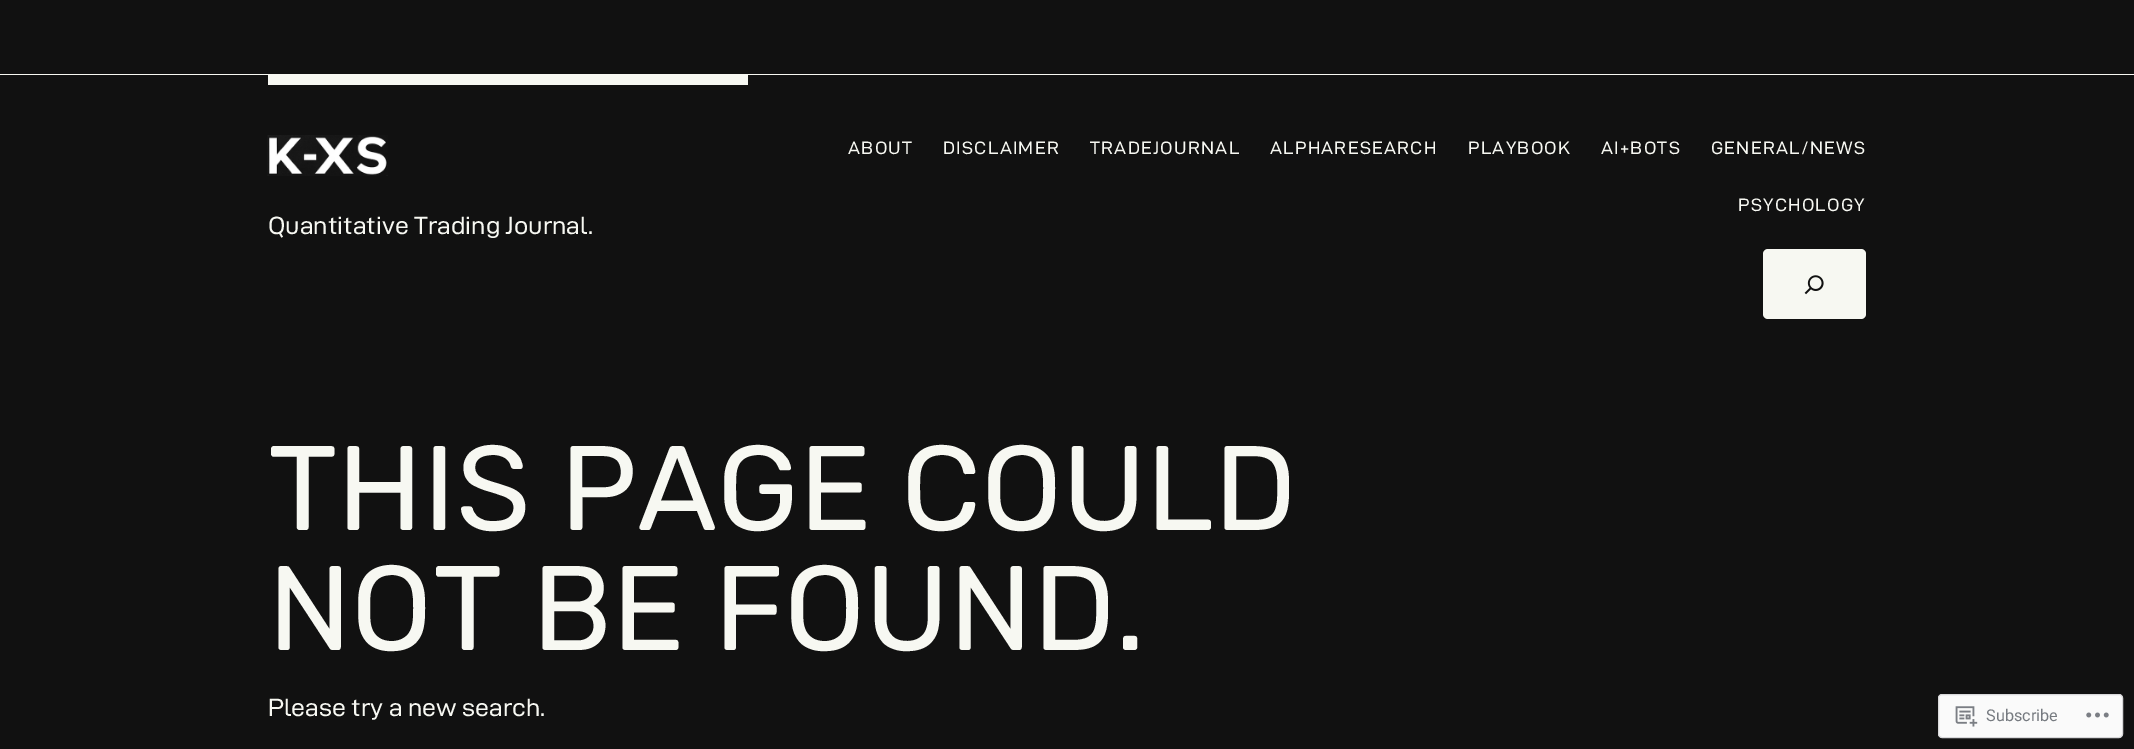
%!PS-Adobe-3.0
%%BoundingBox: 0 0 2134 749
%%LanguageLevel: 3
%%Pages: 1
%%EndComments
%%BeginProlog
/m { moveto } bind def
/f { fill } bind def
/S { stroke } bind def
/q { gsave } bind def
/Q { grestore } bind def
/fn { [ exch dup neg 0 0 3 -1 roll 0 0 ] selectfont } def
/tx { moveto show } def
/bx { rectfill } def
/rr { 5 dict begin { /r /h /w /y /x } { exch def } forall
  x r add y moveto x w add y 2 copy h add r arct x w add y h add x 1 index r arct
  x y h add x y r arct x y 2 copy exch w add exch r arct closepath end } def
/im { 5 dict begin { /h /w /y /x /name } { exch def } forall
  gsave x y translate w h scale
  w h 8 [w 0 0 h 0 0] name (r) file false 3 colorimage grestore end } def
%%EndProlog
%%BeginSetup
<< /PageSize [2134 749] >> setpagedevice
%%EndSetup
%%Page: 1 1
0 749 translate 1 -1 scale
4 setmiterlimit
0.067 setgray
0 0 2134 749 bx
0.969 0.973 0.949 setrgbcolor
0 74 2134 1 bx
/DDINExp-Regular 18 fn
848 154 m 1.25 0 (ABOUT) ashow
943 154 m 1.25 0 (DISCLAIMER) ashow
1090 154 m 1.25 0 (TRADEJOURNAL) ashow
1270 154 m 1.25 0 (ALPHARESEARCH) ashow
1468 154 m 1.25 0 (PLAYBOOK) ashow
1601 154 m 1.25 0 (AI+BOTS) ashow
1711 154 m 1.25 0 (GENERAL/NEWS) ashow
1738 211 m 1.25 0 (PSYCHOLOGY) ashow
1763 249 103 70 5 rr f
(image0.raw) 1804 275 20 20 im
268 75 480 10 bx
(image1.raw) 267 135 121 41 im
/DDINExp-Regular 25 fn
(Quantitative Trading Journal.) 268 234 tx
/Rubik-Regular 120 fn
(THIS PAGE COULD) 268 530 tx
(NOT BE FOUND.) 268 650 tx
/DDINExp-Regular 25 fn
(Please try a new search.) 268 716 tx
0.98 setgray
1938.5 694.5 184 43 3.5 rr q f Q
0.847 0.847 0.855 setrgbcolor
S
(image2.raw) 1955 706 23 21 im
/Roboto-Regular 16.25 fn
0.463 0.478 0.502 setrgbcolor
(Subscribe) 1986 721 tx
(image3.raw) 2086 712 23 6 im
showpage
%%EOF
